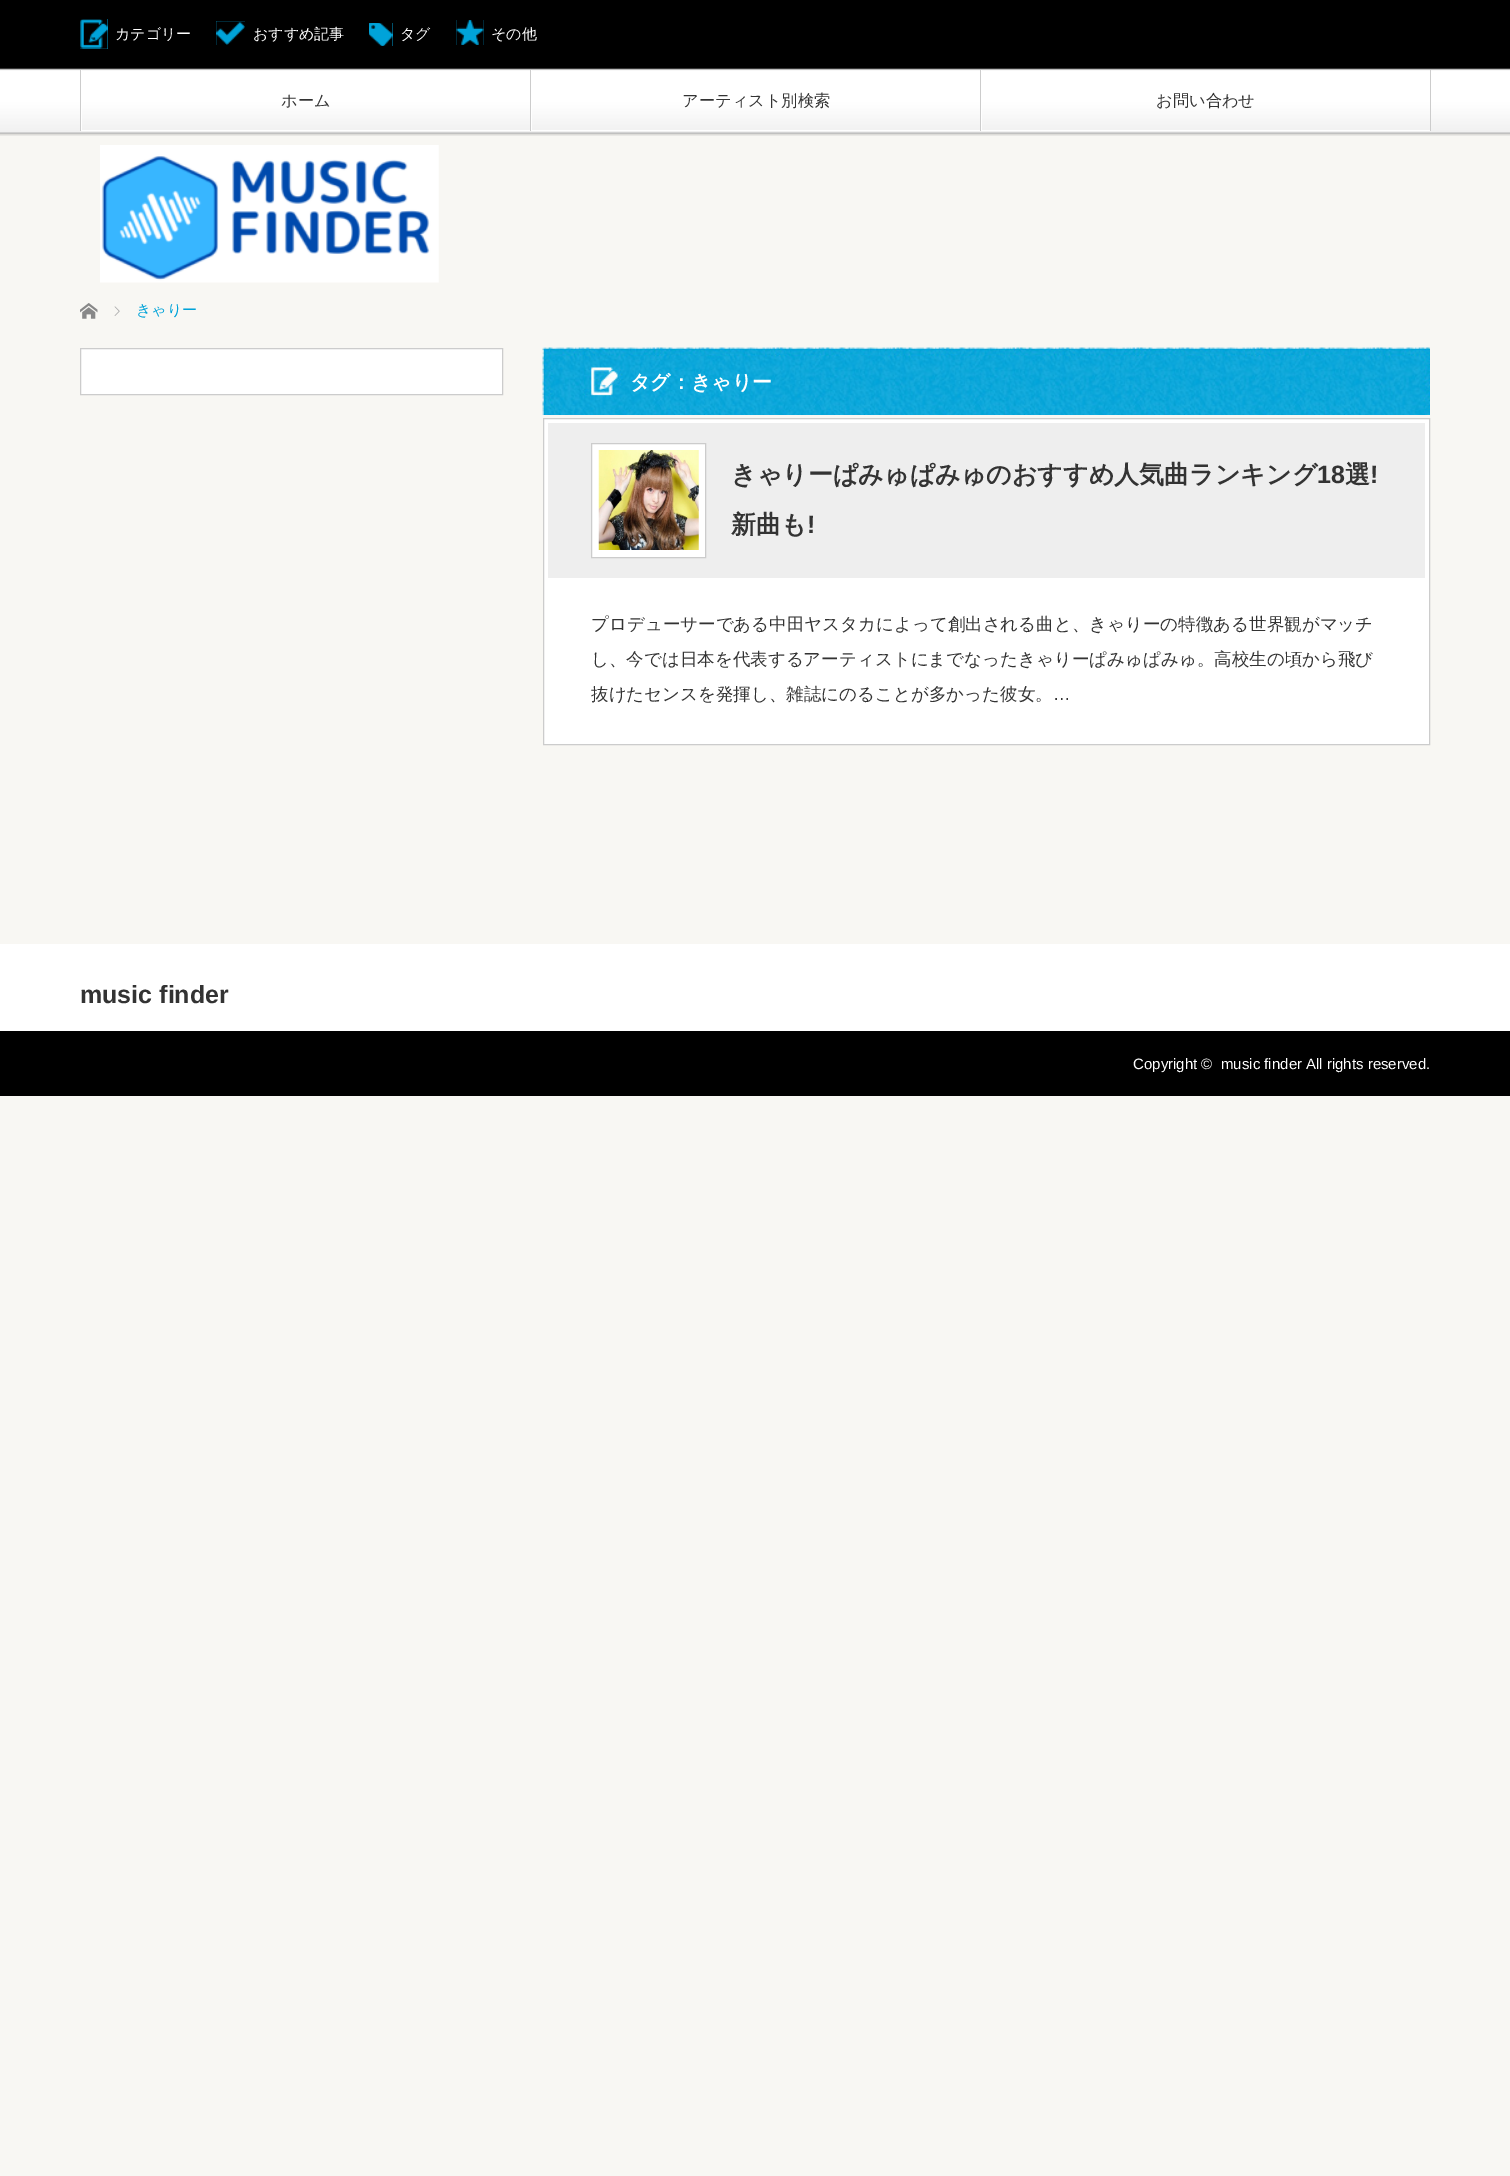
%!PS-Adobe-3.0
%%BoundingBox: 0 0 1510 2176
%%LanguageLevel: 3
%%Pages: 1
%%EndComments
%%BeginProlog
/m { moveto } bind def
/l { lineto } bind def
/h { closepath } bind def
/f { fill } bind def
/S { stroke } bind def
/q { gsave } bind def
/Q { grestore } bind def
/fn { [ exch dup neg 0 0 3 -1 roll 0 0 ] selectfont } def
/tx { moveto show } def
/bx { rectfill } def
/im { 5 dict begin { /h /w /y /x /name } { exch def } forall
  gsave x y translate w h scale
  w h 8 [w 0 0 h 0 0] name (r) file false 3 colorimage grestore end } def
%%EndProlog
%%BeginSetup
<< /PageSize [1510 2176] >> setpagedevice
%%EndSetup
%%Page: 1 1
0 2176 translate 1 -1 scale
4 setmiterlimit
0.973 0.969 0.953 setrgbcolor
0 0 1510 2176 bx
(image0.raw) 0 0 1510 136 im
0 0.639 0.851 setrgbcolor
80 19 28 30 bx
(image1.raw) 80 19 28 30 im
/WenQuanYiZenHei-Medium 15 fn
1 setgray
(カテゴリー) 115 39 tx
0 0.639 0.851 setrgbcolor
216 21 29 24 bx
(image2.raw) 216 21 29 24 im
1 setgray
(おすすめ記事) 253 39 tx
0 0.639 0.851 setrgbcolor
369 23 24 23 bx
(image3.raw) 369 23 24 23 im
1 setgray
(タグ) 400 39 tx
0 0.639 0.851 setrgbcolor
456 20 28 25 bx
(image4.raw) 456 20 28 25 im
1 setgray
(その他) 491 39 tx
0.8 setgray
1430 70 1 61 bx
q
81 70 449 61 rectclip
1 setgray
-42 -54 m 654 -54 l 654 255 l -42 255 l h 82 69 m 531 69 l 531 130 l 82 130 l h eofill
Q
80 70 1 61 bx
/WenQuanYiZenHei-Medium 16.25 fn
0.2 setgray
(ホーム) 281 106 tx
q
531 70 449 61 rectclip
1 setgray
408 -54 m 1104 -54 l 1104 255 l 408 255 l h 532 69 m 981 69 l 981 130 l 532 130 l h eofill
Q
0.8 setgray
530 70 1 61 bx
0.2 setgray
(アーティスト別検索) 682 106 tx
q
981 70 449 61 rectclip
1 setgray
858 -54 m 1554 -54 l 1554 255 l 858 255 l h 982 69 m 1431 69 l 1431 130 l 982 130 l h eofill
Q
0.8 setgray
980 70 1 61 bx
0.2 setgray
(お問い合わせ) 1156 106 tx
(image5.raw) 100 145 339 138 im
(image6.raw) 80 303 18 16 im
(image7.raw) 114 306 6 10 im
/WenQuanYiZenHei-Medium 15 fn
0 0.639 0.851 setrgbcolor
(きゃりー) 136 315 tx
1 setgray
80.5 348.5 m 502.5 348.5 l 502.5 394.5 l 80.5 394.5 l h q f Q
0.8 setgray
S
(image8.raw) 542 347 888 68 im
/WenQuanYiZenHei-Bold 20 fn
1 setgray
(タグ：きゃりー) 630 389 tx
543.5 418.5 m 1429.5 418.5 l 1429.5 744.5 l 543.5 744.5 l h q f Q
0.8 setgray
S
0.933 setgray
548 423 877 155 bx
1 setgray
591.5 443.5 m 705.5 443.5 l 705.5 557.5 l 591.5 557.5 l h q f Q
0.8 setgray
S
(image9.raw) 598 450 101 100 im
/WenQuanYiZenHei-Bold 25 fn
0.2 setgray
(きゃりーぱみゅぱみゅのおすすめ人気曲ランキング) 731 483 tx
/LiberationSans-Bold 25 fn
(18) 1317 483 tx
/WenQuanYiZenHei-Bold 25 fn
(選) 1345 483 tx
/LiberationSans-Bold 25 fn
(!) 1370 483 tx
/WenQuanYiZenHei-Bold 25 fn
(新曲も) 731 533 tx
/LiberationSans-Bold 25 fn
(!) 807 533 tx
/WenQuanYiZenHei-Medium 17.5 fn
(プロデューサーである中田ヤスタカによって創出される曲と、きゃりーの特徴ある世界観がマッチ) 591 630 tx
(し、今では日本を代表するアーティストにまでなったきゃりーぱみゅぱみゅ。高校生の頃から飛び) 591 665 tx
(抜けたセンスを発揮し、雑誌にのることが多かった彼女。) 591 700 tx
/LiberationSans-Regular 17.5 fn
(…) 1053 700 tx
1 setgray
0 944 1510 87 bx
/LiberationSans-Bold 25 fn
0.2 setgray
(music finder) 80 1003 tx
0 setgray
0 1031 1510 65 bx
/LiberationSans-Regular 15 fn
1 setgray
(Copyright ©) 1133 1069 tx
(music finder All rights reserved.) 1221 1069 tx
showpage
%%EOF
